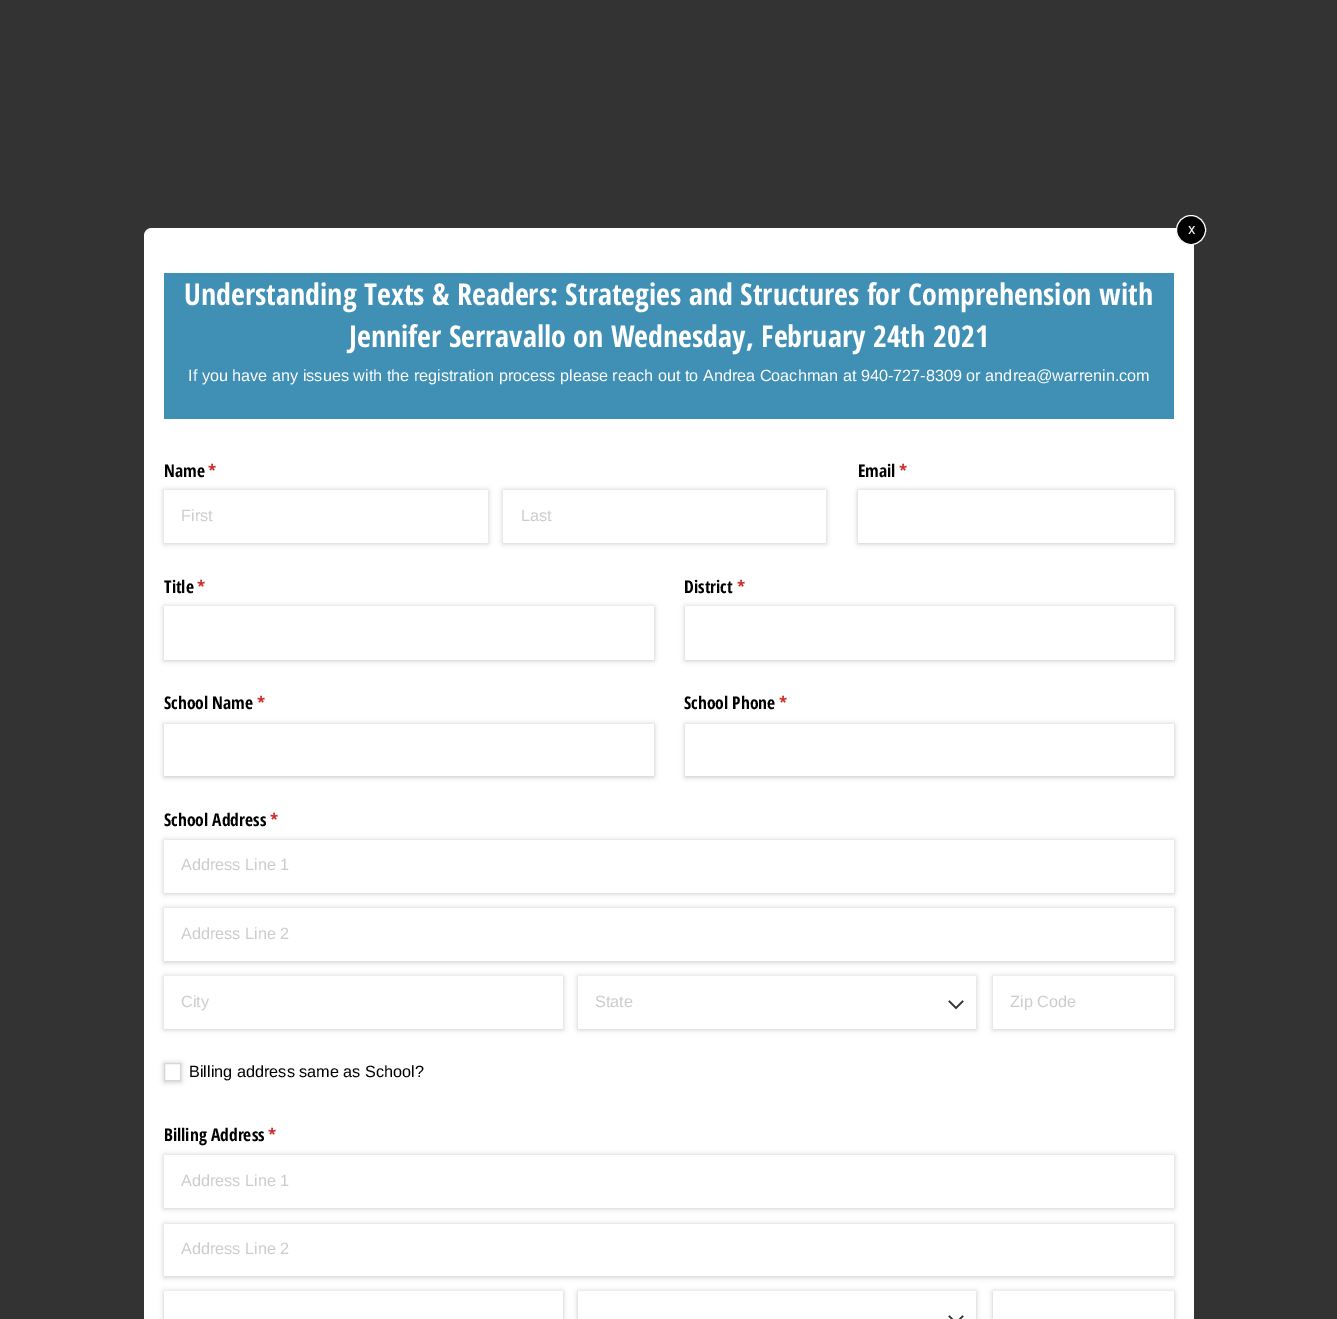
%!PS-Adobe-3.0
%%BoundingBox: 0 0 1337 1319
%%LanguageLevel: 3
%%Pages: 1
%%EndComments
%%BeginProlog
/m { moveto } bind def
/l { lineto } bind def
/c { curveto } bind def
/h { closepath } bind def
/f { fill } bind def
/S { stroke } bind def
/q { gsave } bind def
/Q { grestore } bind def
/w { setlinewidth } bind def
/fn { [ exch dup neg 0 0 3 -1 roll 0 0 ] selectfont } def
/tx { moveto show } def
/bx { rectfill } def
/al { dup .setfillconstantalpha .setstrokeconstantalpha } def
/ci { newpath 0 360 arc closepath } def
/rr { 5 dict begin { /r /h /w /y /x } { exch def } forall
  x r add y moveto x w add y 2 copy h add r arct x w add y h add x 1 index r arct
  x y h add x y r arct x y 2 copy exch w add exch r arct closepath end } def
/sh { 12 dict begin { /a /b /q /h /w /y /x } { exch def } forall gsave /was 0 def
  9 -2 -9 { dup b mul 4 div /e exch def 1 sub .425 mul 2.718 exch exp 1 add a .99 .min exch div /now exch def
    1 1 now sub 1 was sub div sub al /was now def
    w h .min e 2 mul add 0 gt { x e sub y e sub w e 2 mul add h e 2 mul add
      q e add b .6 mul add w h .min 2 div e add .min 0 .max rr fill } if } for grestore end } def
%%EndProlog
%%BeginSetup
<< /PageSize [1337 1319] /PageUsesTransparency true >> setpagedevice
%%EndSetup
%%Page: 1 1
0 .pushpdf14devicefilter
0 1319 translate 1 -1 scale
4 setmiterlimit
0.2 setgray
0 0 1337 1319 bx
1 setgray
152 228 m 1186 228 l 1190.5 228 1194 231.5 1194 236 c 1194 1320 l 144 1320 l 144 236 l 144 231.5 147.5 228 152 228 c h f
0 setgray
1191 230 14.5 ci q f Q
1 setgray
S
/Roboto-Regular 15 fn
(x) 1188 234 tx
0.251 0.565 0.71 setrgbcolor
164 273 1010 146 bx
/OpenSansCondensed-Bold 30.05 fn
1 setgray
(Understanding Texts & Readers: Strategies and Structures for Comprehension with) 184 305 tx
(Jennifer Serravallo on Wednesday, February 24th 2021) 349 347 tx
/LiberationSans-Regular 16.25 fn
(If you have any issues with the registration process please reach out to Andrea Coachman at 940-727-8309 or andrea@warrenin.com) 188 381 tx
/OpenSansCondensed-Bold 17.5 fn
0 setgray
(Name) 164 477 tx
0.8 0.165 0.141 setrgbcolor
(*) 208 477 tx
0 setgray
164 491 324 53 0 2 0.1 sh
0.8 setgray
164 490 324 53 0 3 0.7 sh
1 setgray
164 490 324 53 bx
/LiberationSans-Regular 16.25 fn
0.8 setgray
(First) 181 521 tx
0 setgray
503 491 323 53 0 2 0.1 sh
0.8 setgray
503 490 323 53 0 3 0.7 sh
1 setgray
503 490 323 53 bx
0.8 setgray
(Last) 521 521 tx
/OpenSansCondensed-Bold 17.5 fn
0 setgray
(Email) 858 477 tx
0.8 0.165 0.141 setrgbcolor
(*) 899 477 tx
0.8 setgray
858 490 316 53 0 3 0.7 sh
0 setgray
858 491 316 53 0 2 0.1 sh
1 setgray
858 490 316 53 bx
0 setgray
(Title) 164 593 tx
0.8 0.165 0.141 setrgbcolor
(*) 197 593 tx
0.8 setgray
164 606 490 54 0 3 0.7 sh
0 setgray
164 608 490 53 0 2 0.1 sh
1 setgray
164 606 490 54 bx
0 setgray
(District) 684 593 tx
0.8 0.165 0.141 setrgbcolor
(*) 737 593 tx
0.8 setgray
685 606 489 54 0 3 0.7 sh
0 setgray
685 608 489 53 0 2 0.1 sh
1 setgray
685 606 489 54 bx
0 setgray
(School Name) 164 709 tx
0.8 0.165 0.141 setrgbcolor
(*) 257 709 tx
0.8 setgray
164 724 490 52 0 3 0.7 sh
0 setgray
164 725 490 53 0 2 0.1 sh
1 setgray
164 724 490 52 bx
0 setgray
(School Phone) 684 709 tx
0.8 0.165 0.141 setrgbcolor
(*) 779 709 tx
0.8 setgray
685 724 489 52 0 3 0.7 sh
0 setgray
685 725 489 53 0 2 0.1 sh
1 setgray
685 724 489 52 bx
0 setgray
(School Address) 164 826 tx
0.8 0.165 0.141 setrgbcolor
(*) 270 826 tx
0 setgray
164 841 1010 53 0 2 0.1 sh
0.8 setgray
164 840 1010 53 0 3 0.7 sh
1 setgray
164 840 1010 53 bx
/LiberationSans-Regular 16.25 fn
0.8 setgray
(Address Line 1) 181 870 tx
0 setgray
164 909 1010 54 0 2 0.1 sh
0.8 setgray
164 908 1010 53 0 3 0.7 sh
1 setgray
164 908 1010 53 bx
0.8 setgray
(Address Line 2) 181 939 tx
0 setgray
164 978 399 52 0 2 0.1 sh
0.8 setgray
164 976 399 53 0 3 0.7 sh
1 setgray
164 976 399 53 bx
0.8 setgray
(City) 181 1007 tx
0 setgray
578 978 398 52 0 2 0.1 sh
0.8 setgray
578 976 398 53 0 3 0.7 sh
1 setgray
578 976 398 53 bx
0.8 setgray
(State) 595 1007 tx
0.2 setgray
1.5 w
2 setlinecap
949.5 1001.5 m 956 1008 l 962.5 1001.5 l S
0 setgray
993 978 181 52 0 2 0.1 sh
0.8 setgray
993 976 181 53 0 3 0.7 sh
1 setgray
993 976 181 53 bx
0.8 setgray
(Zip Code) 1010 1007 tx
q
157 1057 m 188 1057 l 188 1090 l 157 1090 l h 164 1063 m 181 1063 l 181 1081 l 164 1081 l h eoclip newpath
0 setgray
164 1064 17 19 0 2 0.1 sh
Q
q
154 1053 m 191 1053 l 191 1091 l 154 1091 l h 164 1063 m 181 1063 l 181 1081 l 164 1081 l h eoclip newpath
164 1063 17 18 0 3 0.7 sh
Q
0.839 setgray
1 w
0 setlinecap
164.5 1063.5 16 17 rectstroke
0 setgray
(Billing address same as School?) 189 1077 tx
/OpenSansCondensed-Bold 17.5 fn
(Billing Address) 164 1141 tx
0.8 0.165 0.141 setrgbcolor
(*) 268 1141 tx
0 setgray
164 1156 1010 53 0 2 0.1 sh
0.8 setgray
164 1155 1010 53 0 3 0.7 sh
1 setgray
164 1155 1010 53 bx
/LiberationSans-Regular 16.25 fn
0.8 setgray
(Address Line 1) 181 1186 tx
0 setgray
164 1225 1010 53 0 2 0.1 sh
0.8 setgray
164 1224 1010 52 0 3 0.7 sh
1 setgray
164 1224 1010 52 bx
0.8 setgray
(Address Line 2) 181 1254 tx
164 1291 399 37 0 3 0.7 sh
0 setgray
164 1293 399 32 0 2 0.1 sh
1 setgray
164 1291 399 28 bx
0.8 setgray
578 1291 398 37 0 3 0.7 sh
0 setgray
578 1293 398 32 0 2 0.1 sh
1 setgray
578 1291 398 28 bx
0.2 setgray
1.5 w
2 setlinecap
949.5 1316.5 m 956 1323 l 962.5 1316.5 l S
0.8 setgray
993 1291 181 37 0 3 0.7 sh
0 setgray
993 1293 181 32 0 2 0.1 sh
1 setgray
993 1291 181 28 bx
.poppdf14devicefilter showpage
%%EOF
